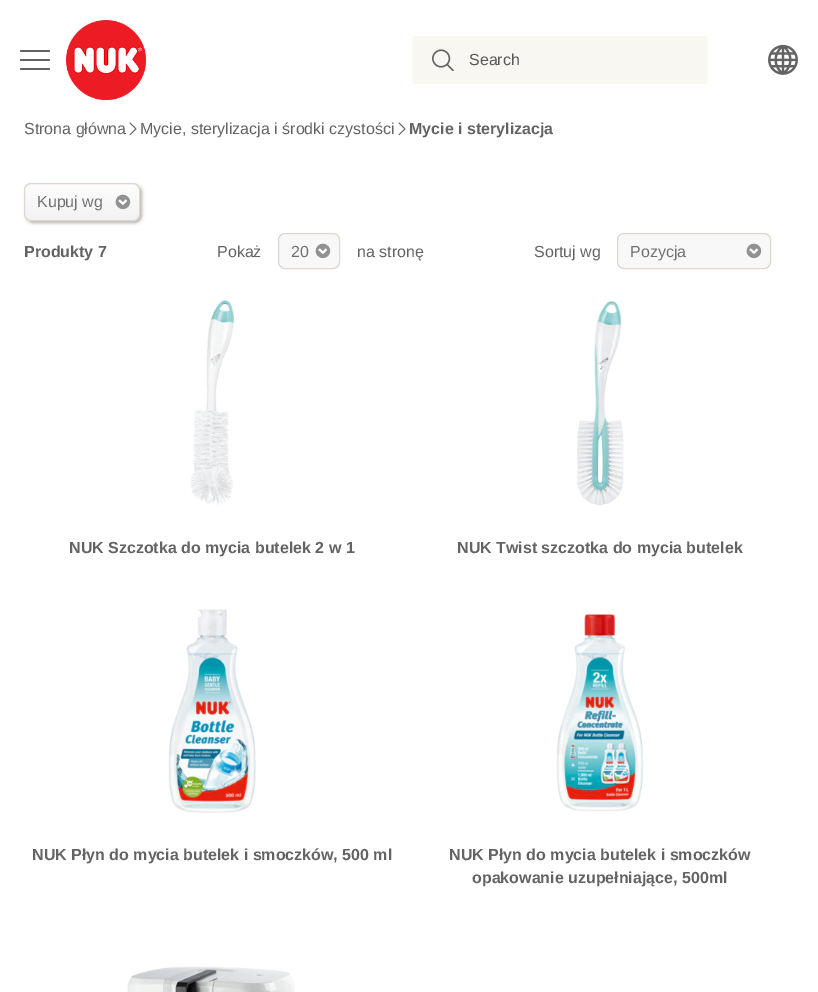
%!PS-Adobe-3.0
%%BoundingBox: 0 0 818 992
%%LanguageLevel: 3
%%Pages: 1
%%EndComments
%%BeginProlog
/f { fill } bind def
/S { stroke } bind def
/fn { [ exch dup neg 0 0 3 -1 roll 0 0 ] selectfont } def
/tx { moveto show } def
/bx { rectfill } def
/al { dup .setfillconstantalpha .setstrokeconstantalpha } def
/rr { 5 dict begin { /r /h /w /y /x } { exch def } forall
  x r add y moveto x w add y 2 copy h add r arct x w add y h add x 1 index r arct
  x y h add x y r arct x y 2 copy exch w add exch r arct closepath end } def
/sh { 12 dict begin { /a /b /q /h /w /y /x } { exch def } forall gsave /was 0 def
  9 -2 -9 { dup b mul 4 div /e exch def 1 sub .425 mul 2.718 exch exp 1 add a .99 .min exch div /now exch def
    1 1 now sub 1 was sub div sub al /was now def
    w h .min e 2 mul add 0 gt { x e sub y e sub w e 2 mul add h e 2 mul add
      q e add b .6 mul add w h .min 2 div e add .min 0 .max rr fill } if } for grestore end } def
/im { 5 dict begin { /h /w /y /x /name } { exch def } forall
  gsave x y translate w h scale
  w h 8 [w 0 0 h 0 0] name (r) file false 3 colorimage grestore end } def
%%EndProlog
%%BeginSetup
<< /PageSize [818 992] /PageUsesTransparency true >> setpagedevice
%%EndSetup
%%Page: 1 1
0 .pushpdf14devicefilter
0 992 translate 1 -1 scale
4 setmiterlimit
1 setgray
0 0 818 992 bx
0.392 0.388 0.388 setrgbcolor
20 50 30 2 1 rr f
20 59 30 2 1 rr f
20 68 30 2 1 rr f
(image0.raw) 66 20 80 80 im
0.973 0.969 0.949 setrgbcolor
412 36 296 48 4 rr f
(image1.raw) 432 49 22 22 im
/LiberationSans-Regular 16 fn
0.341 setgray
(Search) 469 65 tx
(image2.raw) 768 44 30 31 im
0.392 0.388 0.388 setrgbcolor
(Strona główna) 24 134 tx
(image3.raw) 129 122 8 14 im
(Mycie, sterylizacja i środki czystości) 140 134 tx
(image3.raw) 398 122 8 14 im
/LiberationSans-Bold 16 fn
(Mycie i sterylizacja) 409 134 tx
0.2 0.184 0.153 setrgbcolor
26 185 116 38 7 1.5 0.35 sh
(image4.raw) 24 183 116 38 im
0.863 0.847 0.816 setrgbcolor
24.5 183.5 115 37 6.5 rr S
/LiberationSans-Regular 16 fn
0.439 0.443 0.451 setrgbcolor
(Kupuj wg) 37 207 tx
/LiberationSans-Bold 16 fn
0.392 0.388 0.388 setrgbcolor
(Produkty 7) 24 257 tx
/LiberationSans-Regular 16 fn
(Pokaż) 217 257 tx
0.973 setgray
278 233 62 36 7 rr f
(image5.raw) 315 243 16 16 im
0.863 0.847 0.816 setrgbcolor
278.5 233.5 61 35 6.5 rr S
0.439 0.443 0.451 setrgbcolor
(20) 291 257 tx
0.392 0.388 0.388 setrgbcolor
(na stronę) 357 257 tx
(Sortuj wg) 534 257 tx
0.973 setgray
617 233 154 36 7 rr f
(image5.raw) 746 243 16 16 im
0.863 0.847 0.816 setrgbcolor
617.5 233.5 153 35 6.5 rr S
0.439 0.443 0.451 setrgbcolor
(Pozycja) 630 257 tx
(image6.raw) 190 300 44 205 im
/LiberationSans-Bold 16 fn
0.392 0.388 0.388 setrgbcolor
(NUK Szczotka do mycia butelek 2 w 1) 69 553 tx
(image7.raw) 576 301 48 205 im
(NUK Twist szczotka do mycia butelek) 457 553 tx
(image8.raw) 168 609 88 204 im
(NUK Płyn do mycia butelek i smoczków, 500 ml) 32 860 tx
(image9.raw) 556 614 88 198 im
(NUK Płyn do mycia butelek i smoczków) 449 860 tx
(opakowanie uzupełniające, 500ml) 472 883 tx
(image10.raw) 127 966 168 26 im
.poppdf14devicefilter showpage
%%EOF
